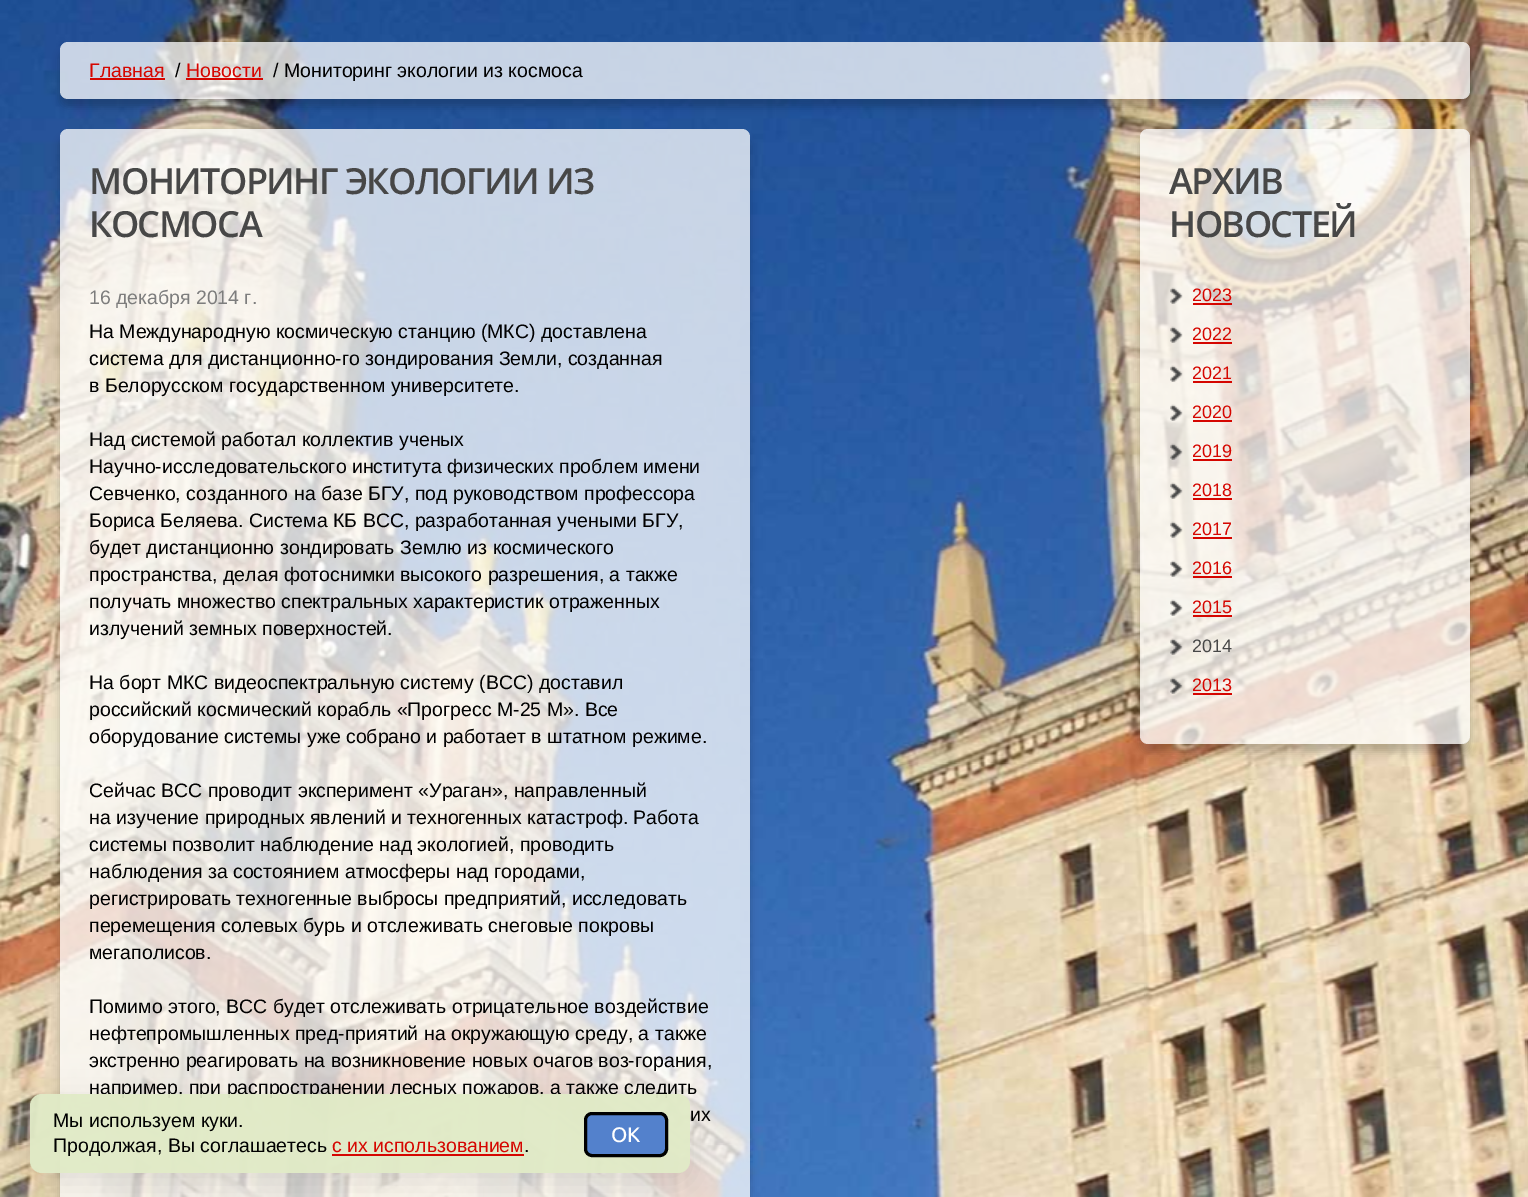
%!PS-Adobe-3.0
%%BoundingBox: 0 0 1528 1197
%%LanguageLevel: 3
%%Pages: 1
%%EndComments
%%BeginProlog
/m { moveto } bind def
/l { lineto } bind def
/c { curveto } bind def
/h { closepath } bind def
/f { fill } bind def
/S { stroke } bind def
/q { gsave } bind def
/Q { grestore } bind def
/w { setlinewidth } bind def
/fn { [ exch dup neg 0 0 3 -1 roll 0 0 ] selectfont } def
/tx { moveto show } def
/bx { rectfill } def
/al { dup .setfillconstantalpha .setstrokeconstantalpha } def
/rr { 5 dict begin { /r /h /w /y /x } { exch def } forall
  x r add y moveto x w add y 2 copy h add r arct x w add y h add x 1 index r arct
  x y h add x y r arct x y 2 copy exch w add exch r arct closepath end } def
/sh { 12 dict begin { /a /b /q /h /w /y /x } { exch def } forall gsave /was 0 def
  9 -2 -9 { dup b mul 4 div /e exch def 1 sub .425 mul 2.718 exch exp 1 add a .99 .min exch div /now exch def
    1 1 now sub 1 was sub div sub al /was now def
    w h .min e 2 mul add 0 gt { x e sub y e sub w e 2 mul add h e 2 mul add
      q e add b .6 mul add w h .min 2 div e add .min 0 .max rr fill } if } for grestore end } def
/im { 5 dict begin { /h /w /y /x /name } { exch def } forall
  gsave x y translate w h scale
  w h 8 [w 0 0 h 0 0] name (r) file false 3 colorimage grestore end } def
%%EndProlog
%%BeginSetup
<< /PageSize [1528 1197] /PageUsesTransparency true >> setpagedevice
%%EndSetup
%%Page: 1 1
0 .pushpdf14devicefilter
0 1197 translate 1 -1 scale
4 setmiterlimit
1 setgray
0 0 1528 1197 bx
(image0.raw) 0 0 1528 1197 im
q
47 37 m 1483 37 l 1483 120 l 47 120 l h 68 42 m 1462 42 l 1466.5 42 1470 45.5 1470 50 c 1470 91 l 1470 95.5 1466.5 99 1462 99 c 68 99 l 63.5 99 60 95.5 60 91 c 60 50 l 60 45.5 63.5 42 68 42 c h eoclip newpath
0 setgray
60 50 1410 57 8 4 0.2 sh
Q
0.75 al
60 42 1410 57 8 rr f
/LiberationSans-Regular 19.5 fn
1 al
0.835 0.024 0 setrgbcolor
(Главная) 89 77 tx
90 78 75 2 bx
0 setgray
(/) 175 77 tx
0.835 0.024 0 setrgbcolor
(Новости) 186 77 tx
186 78 77 2 bx
0 setgray
(/ Мониторинг экологии из космоса) 273 77 tx
q
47 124 m 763 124 l 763 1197 l 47 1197 l h 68 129 m 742 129 l 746.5 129 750 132.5 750 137 c 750 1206 l 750 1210.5 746.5 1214 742 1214 c 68 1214 l 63.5 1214 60 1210.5 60 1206 c 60 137 l 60 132.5 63.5 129 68 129 c h eoclip newpath
60 137 690 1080 8 4 0.2 sh
Q
0.75 al
1 setgray
60 129 690 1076 8 rr f
/OpenSans-SemiBold 36 fn
1 al
0.278 setgray
89 194 m -1.5 0 (МОНИТОРИНГ ЭКОЛОГИИ ИЗ) ashow
89 237 m -1.5 0 (КОСМОСА) ashow
/LiberationSans-Regular 19.5 fn
0.49 setgray
(16 декабря 2014 г.) 89 304 tx
0 setgray
(На Международную космическую станцию \(МКС\) доставлена) 89 338 tx
(система для дистанционно-го зондирования Земли, созданная) 89 365 tx
(в Белорусском государственном университете.) 89 392 tx
(Над системой работал коллектив ученых) 89 446 tx
(Научно-исследовательского института физических проблем имени) 89 473 tx
(Севченко, созданного на базе БГУ, под руководством профессора) 89 500 tx
(Бориса Беляева. Система КБ ВСС, разработанная учеными БГУ,) 89 527 tx
(будет дистанционно зондировать Землю из космического) 89 554 tx
(пространства, делая фотоснимки высокого разрешения, а также) 89 581 tx
(получать множество спектральных характеристик отраженных) 89 608 tx
(излучений земных поверхностей.) 89 635 tx
(На борт МКС видеоспектральную систему \(ВСС\) доставил) 89 689 tx
(российский космический корабль «Прогресс М-25 М». Все) 89 716 tx
(оборудование системы уже собрано и работает в штатном режиме.) 89 743 tx
(Сейчас ВСС проводит эксперимент «Ураган», направленный) 89 797 tx
(на изучение природных явлений и техногенных катастроф. Работа) 89 824 tx
(системы позволит наблюдение над экологией, проводить) 89 851 tx
(наблюдения за состоянием атмосферы над городами,) 89 878 tx
(регистрировать техногенные выбросы предприятий, исследовать) 89 905 tx
(перемещения солевых бурь и отслеживать снеговые покровы) 89 932 tx
(мегаполисов.) 89 959 tx
(Помимо этого, ВСС будет отслеживать отрицательное воздействие) 89 1013 tx
(нефтепромышленных пред-приятий на окружающую среду, а также) 89 1040 tx
(экстренно реагировать на возникновение новых очагов воз-горания,) 89 1067 tx
(например, при распространении лесных пожаров, а также следить) 89 1094 tx
(их) 690 1121 tx
q
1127 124 m 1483 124 l 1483 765 l 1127 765 l h 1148 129 m 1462 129 l 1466.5 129 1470 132.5 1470 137 c 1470 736 l 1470 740.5 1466.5 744 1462 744 c 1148 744 l 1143.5 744 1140 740.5 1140 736 c 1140 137 l 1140 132.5 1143.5 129 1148 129 c h eoclip newpath
1140 137 330 615 8 4 0.2 sh
Q
0.75 al
1 setgray
1140 129 330 615 8 rr f
/OpenSans-SemiBold 36 fn
1 al
0.278 setgray
1169 194 m -1.5 0 (АРХИВ) ashow
1169 237 m -1.5 0 (НОВОСТЕЙ) ashow
(image1.raw) 1170 287 13 17 im
/LiberationSans-Regular 18 fn
0.835 0.024 0 setrgbcolor
(2023) 1192 301 tx
1193 303 39 2 bx
(image2.raw) 1170 326 13 17 im
(2022) 1192 340 tx
1193 342 39 2 bx
(image3.raw) 1170 365 13 17 im
(2021) 1192 379 tx
1193 381 39 2 bx
(image4.raw) 1170 404 13 17 im
(2020) 1192 418 tx
1193 420 39 2 bx
(image5.raw) 1170 443 13 17 im
(2019) 1192 457 tx
1193 459 39 2 bx
(image6.raw) 1170 482 13 17 im
(2018) 1192 496 tx
1193 498 39 2 bx
(image7.raw) 1170 521 13 17 im
(2017) 1192 535 tx
1193 537 39 2 bx
(image8.raw) 1170 560 13 17 im
(2016) 1192 574 tx
1193 576 39 2 bx
(image9.raw) 1170 599 13 17 im
(2015) 1192 613 tx
1193 615 39 2 bx
(image10.raw) 1170 638 13 17 im
0.278 setgray
(2014) 1192 652 tx
(image11.raw) 1170 677 13 17 im
0.835 0.024 0 setrgbcolor
(2013) 1192 691 tx
1193 693 39 2 bx
q
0 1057 m 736 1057 l 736 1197 l 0 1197 l h 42 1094 m 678 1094 l 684.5 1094 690 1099.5 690 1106 c 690 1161 l 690 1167.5 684.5 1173 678 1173 c 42 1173 l 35.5 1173 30 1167.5 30 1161 c 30 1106 l 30 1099.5 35.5 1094 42 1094 c h eoclip newpath
0 setgray
30 1103 660 79 12 15 0.1 sh
Q
0.95 al
0.878 0.918 0.776 setrgbcolor
30 1094 660 79 12 rr f
/LiberationSans-Regular 19.5 fn
1 al
0 setgray
(Мы используем куки.) 53 1127 tx
(Продолжая, Вы соглашаетесь) 53 1152 tx
0.835 0.024 0 setrgbcolor
(с их использованием) 332 1152 tx
332 1154 192 2 bx
0 setgray
(.) 524 1152 tx
0.325 0.506 0.8 setrgbcolor
585.5 1113.5 81 42 6.5 rr q f Q
0 setgray
3 w
S
/Ubuntu-Medium 21 fn
1 setgray
(ОК) 611 1142 tx
.poppdf14devicefilter showpage
%%EOF
